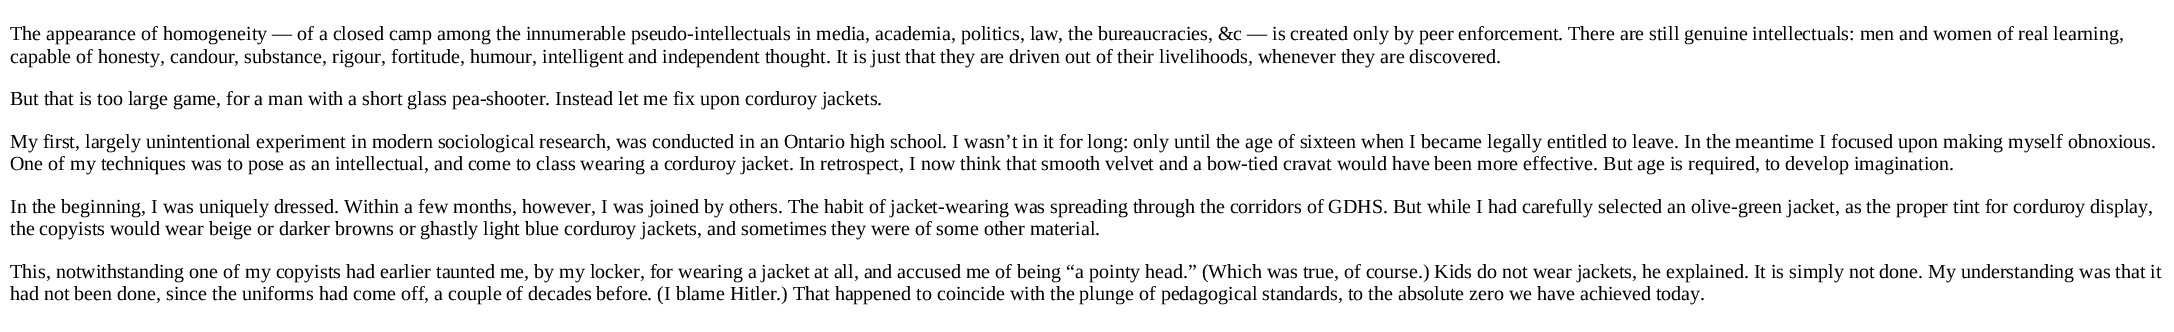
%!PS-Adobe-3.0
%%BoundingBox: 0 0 2174 332
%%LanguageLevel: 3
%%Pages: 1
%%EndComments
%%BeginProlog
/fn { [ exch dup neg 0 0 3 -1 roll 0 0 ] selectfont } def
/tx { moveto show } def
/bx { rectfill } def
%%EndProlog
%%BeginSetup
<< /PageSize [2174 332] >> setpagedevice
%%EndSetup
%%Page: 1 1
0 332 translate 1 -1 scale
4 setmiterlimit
1 setgray
0 0 2174 332 bx
/LiberationSerif-Regular 20 fn
0 setgray
(The appearance of homogeneity — of a closed camp among the innumerable pseudo-intellectuals in media, academia, politics, law, the bureaucracies, &c — is created only by peer enforcement. There are still genuine intellectuals: men and women of real learning,) 10 40 tx
(capable of honesty, candour, substance, rigour, fortitude, humour, intelligent and independent thought. It is just that they are driven out of their livelihoods, whenever they are discovered.) 10 63 tx
(But that is too large game, for a man with a short glass pea-shooter. Instead let me fix upon corduroy jackets.) 10 105 tx
(My first, largely unintentional experiment in modern sociological research, was conducted in an Ontario high school. I wasn’t in it for long: only until the age of sixteen when I became legally entitled to leave. In the meantime I focused upon making myself obnoxious.) 10 148 tx
(One of my techniques was to pose as an intellectual, and come to class wearing a corduroy jacket. In retrospect, I now think that smooth velvet and a bow-tied cravat would have been more effective. But age is required, to develop imagination.) 10 170 tx
(In the beginning, I was uniquely dressed. Within a few months, however, I was joined by others. The habit of jacket-wearing was spreading through the corridors of GDHS. But while I had carefully selected an olive-green jacket, as the proper tint for corduroy display,) 10 213 tx
(the copyists would wear beige or darker browns or ghastly light blue corduroy jackets, and sometimes they were of some other material.) 10 235 tx
(This, notwithstanding one of my copyists had earlier taunted me, by my locker, for wearing a jacket at all, and accused me of being “a pointy head.” \(Which was true, of course.\) Kids do not wear jackets, he explained. It is simply not done. My understanding was that it) 10 278 tx
(had not been done, since the uniforms had come off, a couple of decades before. \(I blame Hitler.\) That happened to coincide with the plunge of pedagogical standards, to the absolute zero we have achieved today.) 10 300 tx
showpage
%%EOF
